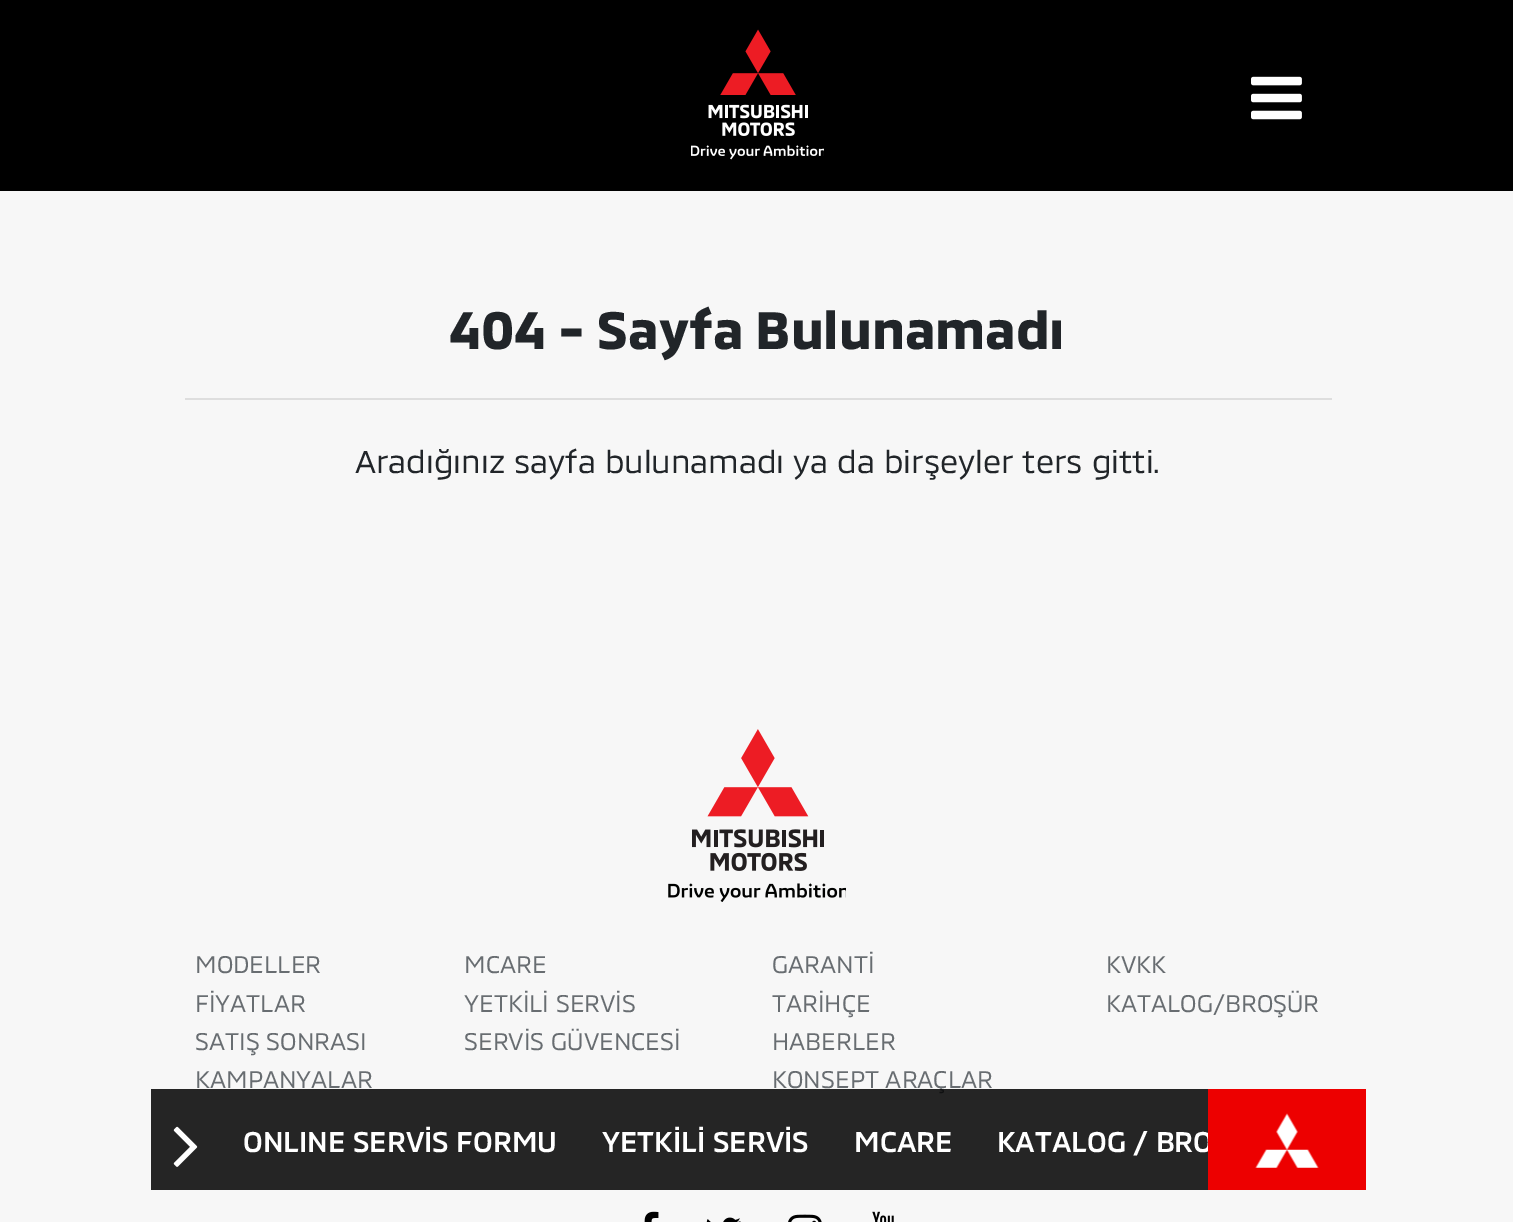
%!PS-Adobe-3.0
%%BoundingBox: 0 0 1513 1222
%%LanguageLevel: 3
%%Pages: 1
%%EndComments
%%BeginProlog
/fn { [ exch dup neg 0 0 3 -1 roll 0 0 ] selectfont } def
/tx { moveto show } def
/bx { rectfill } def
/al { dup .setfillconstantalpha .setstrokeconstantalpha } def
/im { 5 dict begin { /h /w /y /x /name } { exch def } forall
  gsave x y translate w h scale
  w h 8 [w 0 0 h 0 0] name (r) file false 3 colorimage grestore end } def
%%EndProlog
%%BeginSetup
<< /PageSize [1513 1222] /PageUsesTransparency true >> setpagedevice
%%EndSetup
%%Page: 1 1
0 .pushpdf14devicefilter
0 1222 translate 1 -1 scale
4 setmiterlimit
0.969 setgray
0 0 1513 1222 bx
0 setgray
0 0 1513 191 bx
(image0.raw) 691 29 133 131 im
(image1.raw) 1251 76 51 44 im
/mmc-Bold 54 fn
0.129 0.145 0.161 setrgbcolor
(404 - Sayfa Bulunamadı) 449 349 tx
0.871 setgray
185 398 1147 2 bx
/mmc-Regular 32.4 fn
0.129 0.145 0.161 setrgbcolor
(Aradığınız sayfa bulunamadı ya da birşeyler ters gitti.) 355 473 tx
(image2.raw) 668 729 178 173 im
/mmc-Regular 24.75 fn
0.408 0.427 0.443 setrgbcolor
(MODELLER) 195 973 tx
(FİYATLAR) 195 1012 tx
(SATIŞ SONRASI) 195 1050 tx
(KAMPANYALAR) 195 1088 tx
(MCARE) 464 973 tx
(YETKİLİ SERVİS) 464 1012 tx
(SERVİS GÜVENCESİ) 464 1050 tx
(GARANTİ) 772 973 tx
(TARİHÇE) 772 1012 tx
(HABERLER) 772 1050 tx
(KONSEPT ARAÇLAR) 772 1088 tx
(KVKK) 1106 973 tx
(KATALOG/BROŞÜR) 1106 1012 tx
(image3.raw) 644 1211 15 11 im
(image4.raw) 706 1217 35 5 im
(image5.raw) 788 1214 34 8 im
(image6.raw) 872 1211 22 11 im
0.85 al
0 setgray
151 1089 1057 101 bx
1 al
(image7.raw) 173 1126 25 41 im
/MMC-Medium 29.25 fn
1 setgray
(ONLINE SERVİS FORMU) 243 1152 tx
(YETKİLİ SERVİS) 602 1152 tx
(MCARE) 854 1152 tx
(KATALOG / BRO) 997 1152 tx
0.929 0 0 setrgbcolor
1208 1089 158 101 bx
(image8.raw) 1255 1113 64 55 im
.poppdf14devicefilter showpage
%%EOF
